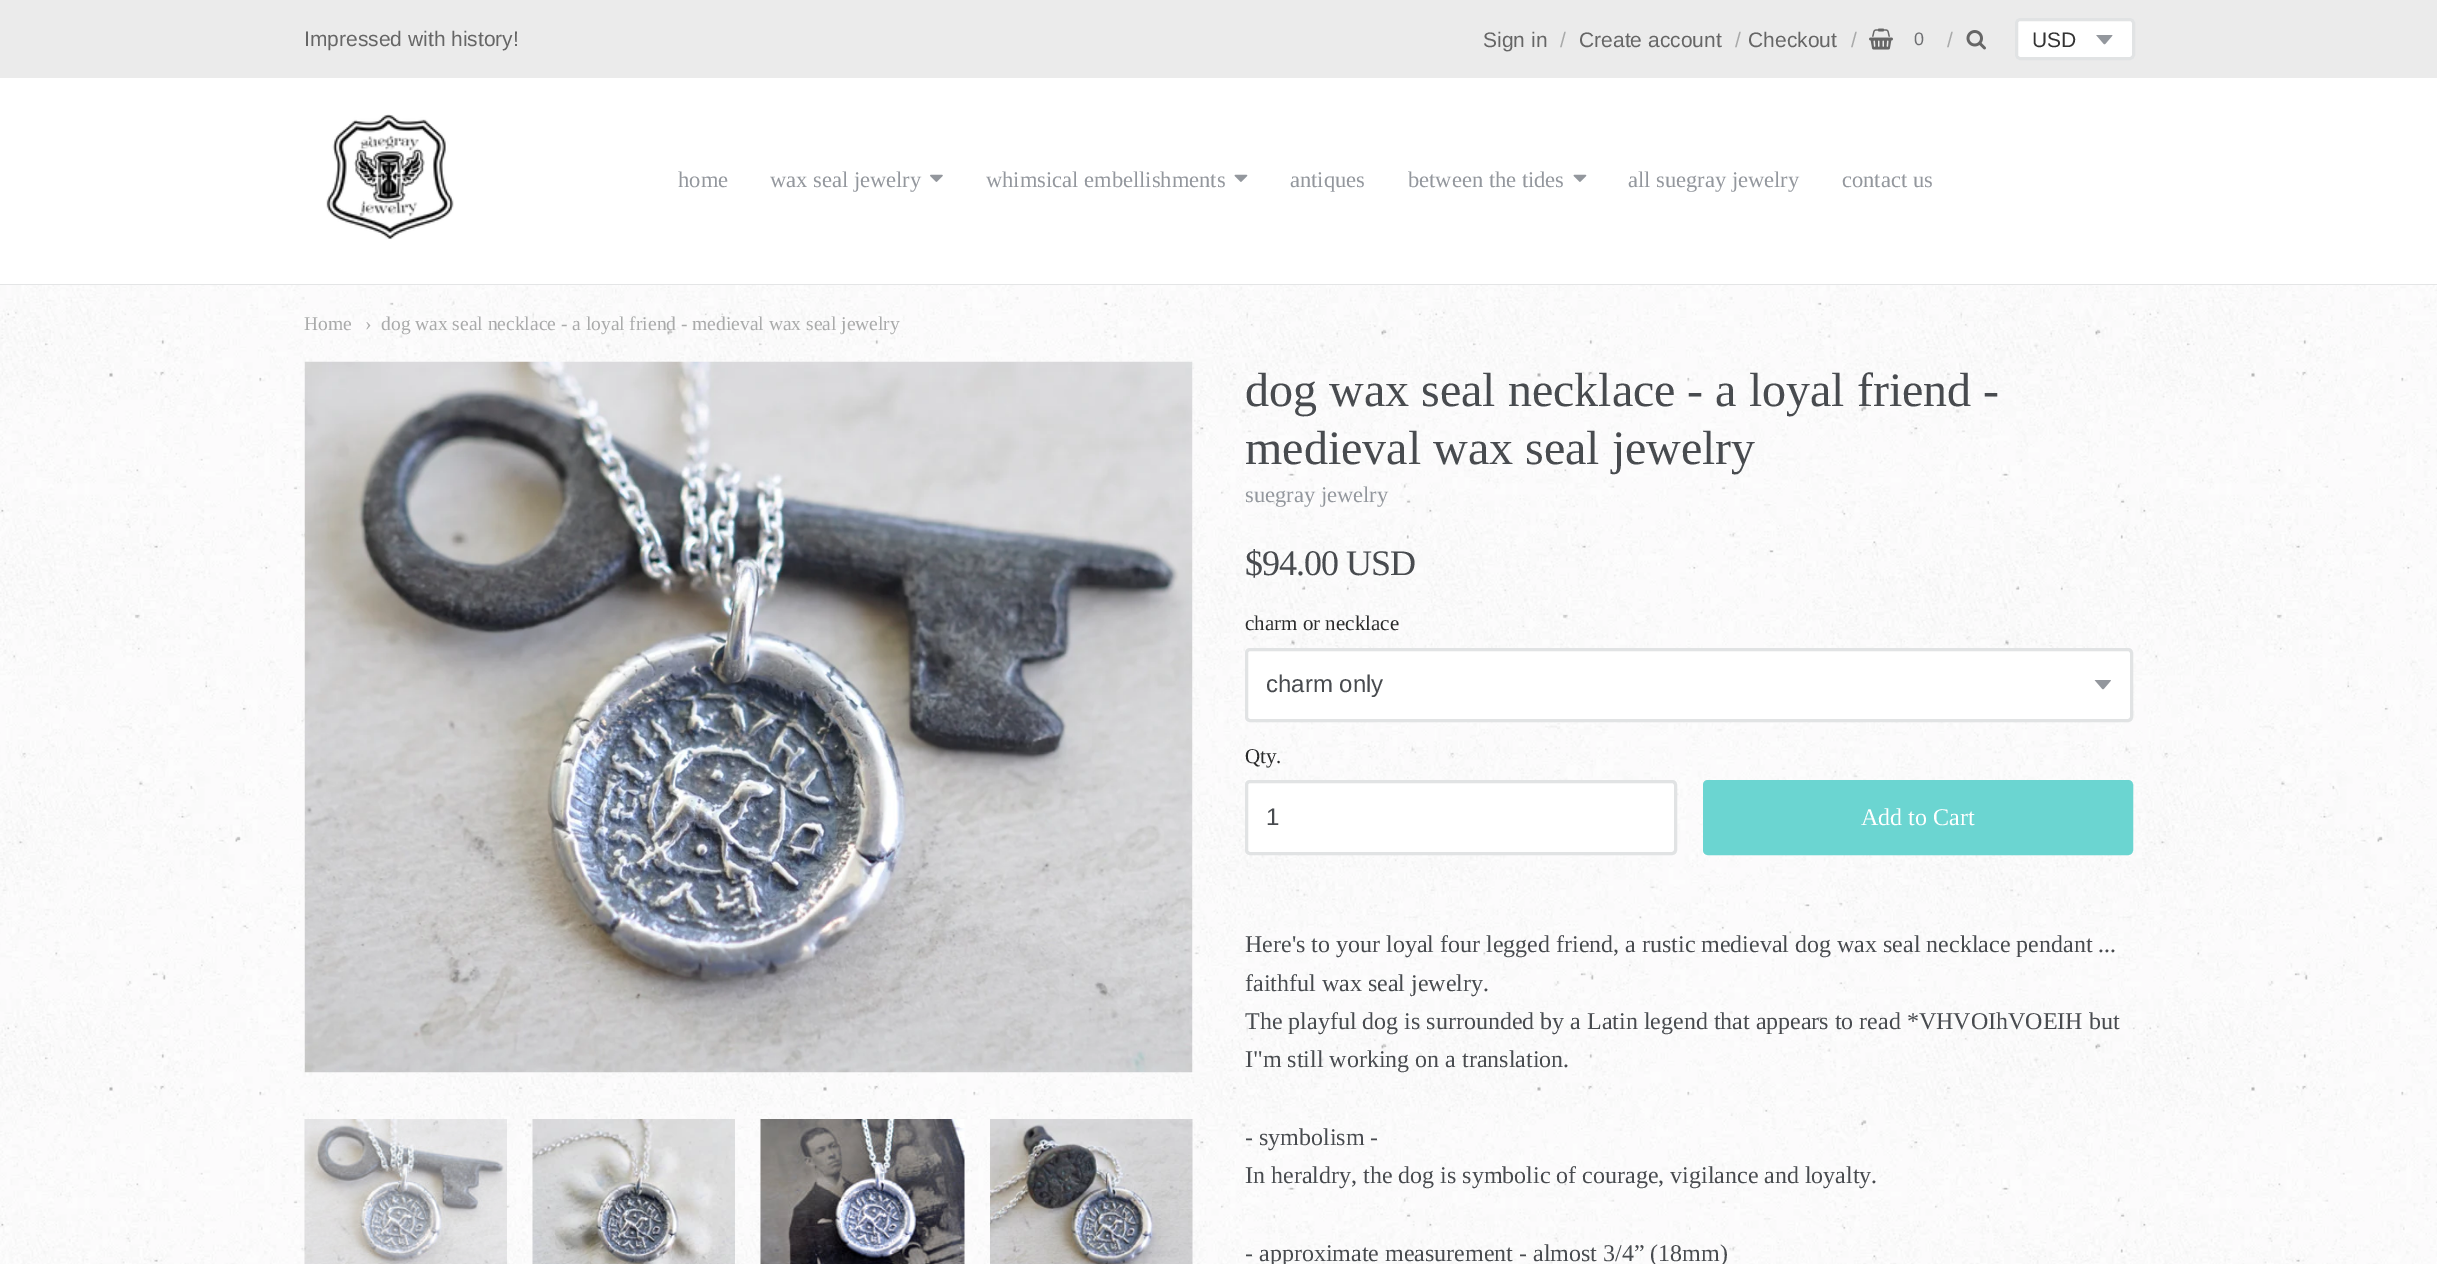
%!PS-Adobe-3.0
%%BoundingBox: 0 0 2437 1264
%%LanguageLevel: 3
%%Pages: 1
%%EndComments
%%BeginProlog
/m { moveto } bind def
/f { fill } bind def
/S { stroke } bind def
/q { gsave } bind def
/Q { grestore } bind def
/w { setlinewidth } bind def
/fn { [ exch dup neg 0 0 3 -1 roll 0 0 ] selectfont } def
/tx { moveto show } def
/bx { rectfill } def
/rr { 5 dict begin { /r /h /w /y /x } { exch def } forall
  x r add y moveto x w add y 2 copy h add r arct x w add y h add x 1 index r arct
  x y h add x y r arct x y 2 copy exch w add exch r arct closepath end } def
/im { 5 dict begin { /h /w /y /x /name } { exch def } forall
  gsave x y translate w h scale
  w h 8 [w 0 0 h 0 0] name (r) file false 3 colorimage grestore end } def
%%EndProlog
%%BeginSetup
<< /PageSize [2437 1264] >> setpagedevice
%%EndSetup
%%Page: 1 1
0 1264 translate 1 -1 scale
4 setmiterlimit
0.922 setgray
0 0 2437 1264 bx
/LiberationSans-Regular 21 fn
0.4 setgray
(Impressed with history!) 304 46 tx
(Sign in) 1483 47 tx
0.663 0.667 0.667 setrgbcolor
(/) 1560 47 tx
0.4 setgray
(Create account) 1579 47 tx
0.663 0.667 0.667 setrgbcolor
(/) 1735 47 tx
0.4 setgray
(Checkout) 1748 47 tx
0.663 0.667 0.667 setrgbcolor
(/) 1851 47 tx
(image0.raw) 1869 28 24 22 im
/LiberationSans-Regular 18 fn
0.431 0.435 0.447 setrgbcolor
(0) 1914 45 tx
/LiberationSans-Regular 21 fn
0.663 0.667 0.667 setrgbcolor
(/) 1947 47 tx
(image1.raw) 1966 30 20 20 im
1 setgray
2015 18 120 42 5 rr f
(image2.raw) 2096 35 17 10 im
0.882 0.89 0.894 setrgbcolor
3 w
2016.5 19.5 117 39 3.5 rr S
0.2 setgray
(USD) 2032 47 tx
1 setgray
0 78 2437 206 bx
0.894 0.898 0.902 setrgbcolor
0 284 2437 1 bx
(image3.raw) 326 114 128 126 im
/LiberationSerif-Regular 22.5 fn
0.576 0.592 0.616 setrgbcolor
(home) 678 187 tx
(wax seal jewelry) 770 187 tx
(image4.raw) 930 174 13 8 im
(whimsical embellishments) 986 187 tx
(image5.raw) 1234 174 14 8 im
(antiques) 1290 187 tx
(between the tides) 1408 187 tx
(image5.raw) 1573 174 14 8 im
(all suegray jewelry) 1628 187 tx
(contact us) 1842 187 tx
(image6.raw) 0 285 2437 979 im
/LiberationSerif-Regular 19.5 fn
0.663 0.667 0.667 setrgbcolor
(Home) 304 330 tx
(›) 365 330 tx
(dog wax seal necklace - a loyal friend - medieval wax seal jewelry) 381 330 tx
(image7.raw) 304 361 889 712 im
(image8.raw) 304 1119 203 145 im
(image9.raw) 532 1119 203 145 im
(image10.raw) 760 1119 205 145 im
(image11.raw) 990 1119 203 145 im
/LiberationSerif-Regular 48 fn
0.282 0.294 0.31 setrgbcolor
(dog wax seal necklace - a loyal friend -) 1245 406 tx
(medieval wax seal jewelry) 1245 464 tx
/LiberationSerif-Regular 22.5 fn
0.576 0.592 0.616 setrgbcolor
(suegray jewelry) 1245 502 tx
/LiberationSerif-Regular 36 fn
0.282 0.294 0.31 setrgbcolor
1245 575 m -1 0 ($94.00 USD) ashow
/LiberationSerif-Regular 21 fn
0.165 0.169 0.169 setrgbcolor
(charm or necklace) 1245 630 tx
1 setgray
1245 648 888 74 5 rr f
(image12.raw) 2094 680 17 10 im
0.882 0.89 0.894 setrgbcolor
1246.5 649.5 885 71 3.5 rr S
/LiberationSans-Regular 24 fn
0.282 0.294 0.31 setrgbcolor
(charm only) 1266 692 tx
/LiberationSerif-Regular 21 fn
0.165 0.169 0.169 setrgbcolor
(Qty.) 1245 763 tx
1 setgray
1246.5 781.5 429 72 3.5 rr q f Q
0.882 0.89 0.894 setrgbcolor
S
/LiberationSans-Regular 24 fn
0.282 0.294 0.31 setrgbcolor
(1) 1266 825 tx
0.42 0.835 0.82 setrgbcolor
1704.5 781.5 427 72 3.5 rr q f Q
S
/LiberationSerif-Regular 24 fn
1 setgray
(Add to Cart) 1861 825 tx
0.282 0.294 0.31 setrgbcolor
(Here's to your loyal four legged friend, a rustic medieval dog wax seal necklace pendant ...) 1245 952 tx
(faithful wax seal jewelry.) 1245 991 tx
(The playful dog is surrounded by a Latin legend that appears to read *VHVOIhVOEIH but) 1245 1029 tx
(I"m still working on a translation.) 1245 1067 tx
(- symbolism -) 1245 1145 tx
(In heraldry, the dog is symbolic of courage, vigilance and loyalty.) 1245 1183 tx
(- approximate measurement - almost 3/4” \(18mm\)) 1245 1261 tx
showpage
%%EOF
